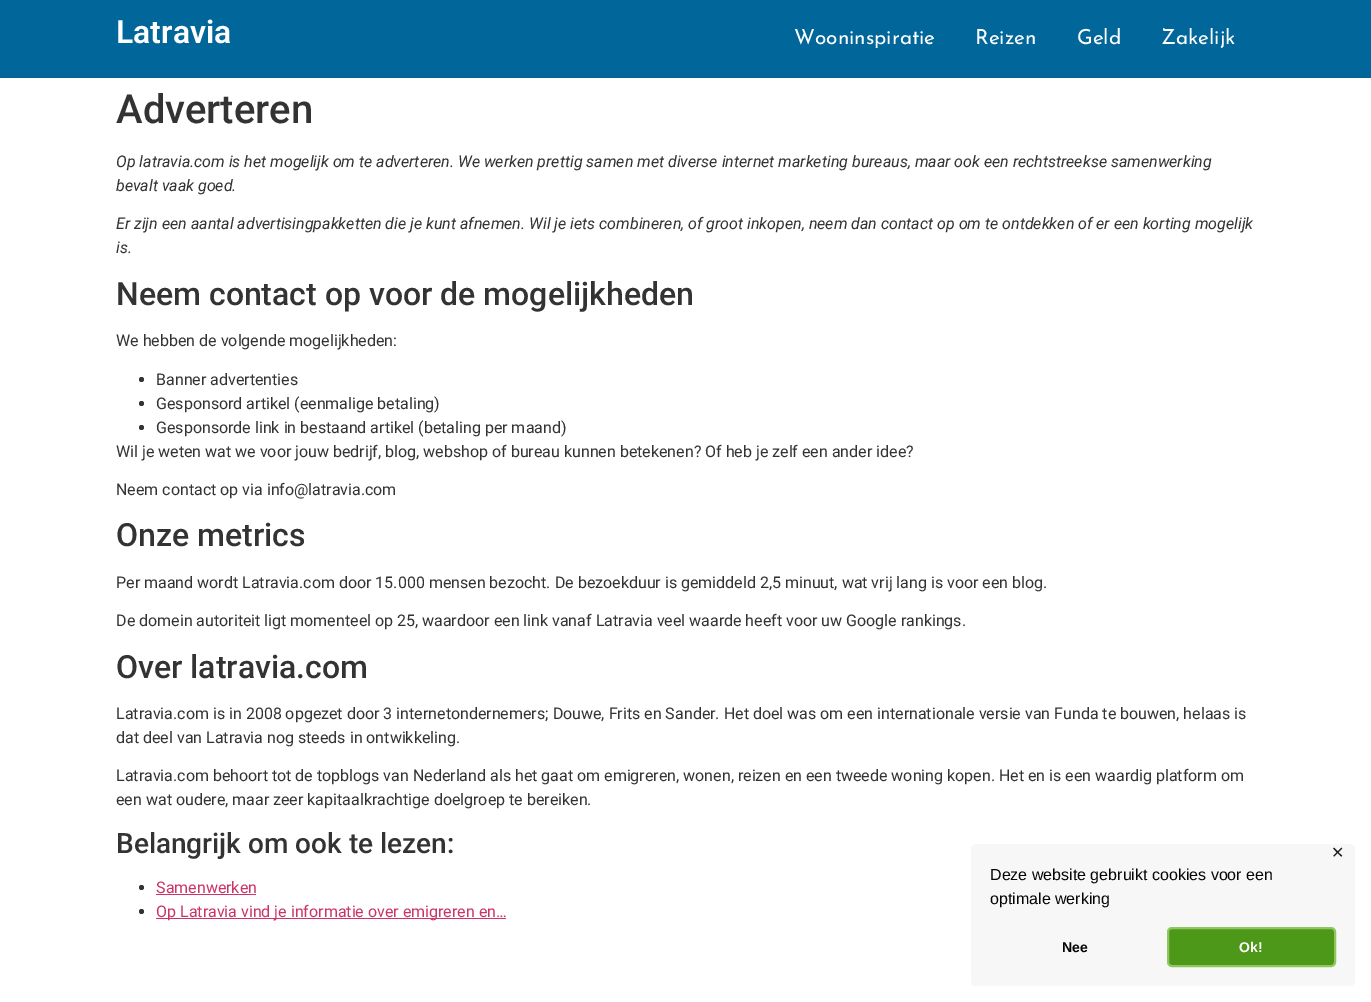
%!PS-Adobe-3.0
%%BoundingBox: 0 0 1371 1002
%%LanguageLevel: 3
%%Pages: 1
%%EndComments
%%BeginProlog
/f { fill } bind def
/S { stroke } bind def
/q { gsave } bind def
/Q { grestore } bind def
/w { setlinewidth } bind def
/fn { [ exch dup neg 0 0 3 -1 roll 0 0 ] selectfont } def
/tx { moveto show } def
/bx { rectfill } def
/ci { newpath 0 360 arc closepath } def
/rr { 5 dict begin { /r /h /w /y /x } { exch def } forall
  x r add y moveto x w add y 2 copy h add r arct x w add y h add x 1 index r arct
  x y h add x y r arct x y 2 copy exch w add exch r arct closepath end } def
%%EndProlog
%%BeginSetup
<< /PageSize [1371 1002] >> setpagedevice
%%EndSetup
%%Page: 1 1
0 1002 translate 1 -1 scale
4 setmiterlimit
1 setgray
0 0 1371 1002 bx
0.004 0.4 0.604 setrgbcolor
0 0 1371 78 bx
/Roboto-SemiBold 32 fn
1 setgray
(Latravia) 116 43 tx
/JosefinSans-Regular 20.75 fn
(Wooninspiratie) 794 44 tx
(Reizen) 975 44 tx
(Geld) 1077 44 tx
(Zakelijk) 1161 44 tx
/Roboto-Medium 40 fn
0.2 setgray
(Adverteren) 116 123 tx
/Roboto-Italic 16 fn
(Op latravia.com is het mogelijk om te adverteren. We werken prettig samen met diverse internet marketing bureaus, maar ook een rechtstreekse samenwerking) 116 167 tx
(bevalt vaak goed.) 116 191 tx
(Er zijn een aantal advertisingpakketten die je kunt afnemen. Wil je iets combineren, of groot inkopen, neem dan contact op om te ontdekken of er een korting mogelijk) 116 229 tx
(is.) 116 253 tx
/Roboto-Medium 32 fn
(Neem contact op voor de mogelijkheden) 116 305 tx
/Roboto-Regular 16 fn
(We hebben de volgende mogelijkheden:) 116 346 tx
141.5 379.5 2.5 ci f
(Banner advertenties) 156 385 tx
141.5 403.5 2.5 ci f
(Gesponsord artikel \(eenmalige betaling\)) 156 409 tx
141.5 427.5 2.5 ci f
(Gesponsorde link in bestaand artikel \(betaling per maand\)) 156 433 tx
(Wil je weten wat we voor jouw bedrijf, blog, webshop of bureau kunnen betekenen? Of heb je zelf een ander idee?) 116 457 tx
(Neem contact op via info@latravia.com) 116 495 tx
/Roboto-Medium 32 fn
(Onze metrics) 116 546 tx
/Roboto-Regular 16 fn
(Per maand wordt Latravia.com door 15.000 mensen bezocht. De bezoekduur is gemiddeld 2,5 minuut, wat vrij lang is voor een blog.) 116 588 tx
(De domein autoriteit ligt momenteel op 25, waardoor een link vanaf Latravia veel waarde heeft voor uw Google rankings.) 116 626 tx
/Roboto-Medium 32 fn
(Over latravia.com) 116 678 tx
/Roboto-Regular 16 fn
(Latravia.com is in 2008 opgezet door 3 internetondernemers; Douwe, Frits en Sander. Het doel was om een internationale versie van Funda te bouwen, helaas is) 116 719 tx
(dat deel van Latravia nog steeds in ontwikkeling.) 116 743 tx
(Latravia.com behoort tot de topblogs van Nederland als het gaat om emigreren, wonen, reizen en een tweede woning kopen. Het en is een waardig platform om) 116 781 tx
(een wat oudere, maar zeer kapitaalkrachtige doelgroep te bereiken.) 116 805 tx
/Roboto-Medium 28 fn
(Belangrijk om ook te lezen:) 116 853 tx
141.5 887.5 2.5 ci f
/Roboto-Regular 16 fn
0.8 0.2 0.4 setrgbcolor
(Samenwerken) 156 893 tx
156 894 100 1 bx
0.2 setgray
141.5 911.5 2.5 ci f
0.8 0.2 0.4 setrgbcolor
156 918 350 1 bx
(Op Latravia vind je informatie over emigreren en…) 156 917 tx
0.969 setgray
971 844 384 142 5 rr f
/DejaVuSans-Regular 16 fn
0.114 setgray
(✕) 1331 858 tx
/LiberationSans-Regular 16 fn
0.02 setgray
(Deze website gebruikt cookies voor een) 990 880 tx
(optimale werking) 990 904 tx
/LiberationSans-Bold 14 fn
(Nee) 1062 952 tx
0.306 0.596 0.098 setrgbcolor
1168 928 167 38 4 rr q f Q
0.557 0.78 0.376 setrgbcolor
2 w
S
1 setgray
(Ok!) 1239 952 tx
showpage
%%EOF
